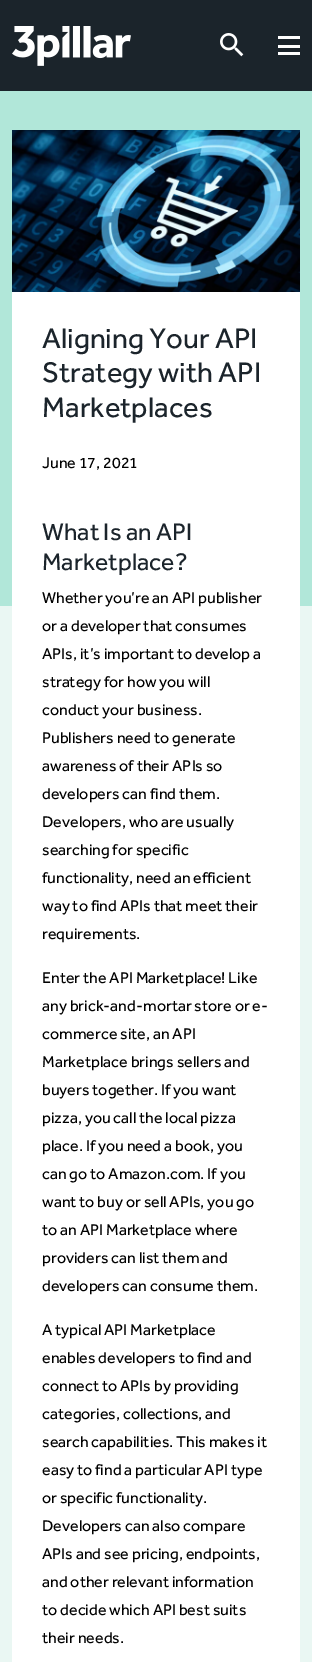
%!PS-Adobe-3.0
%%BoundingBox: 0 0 312 1662
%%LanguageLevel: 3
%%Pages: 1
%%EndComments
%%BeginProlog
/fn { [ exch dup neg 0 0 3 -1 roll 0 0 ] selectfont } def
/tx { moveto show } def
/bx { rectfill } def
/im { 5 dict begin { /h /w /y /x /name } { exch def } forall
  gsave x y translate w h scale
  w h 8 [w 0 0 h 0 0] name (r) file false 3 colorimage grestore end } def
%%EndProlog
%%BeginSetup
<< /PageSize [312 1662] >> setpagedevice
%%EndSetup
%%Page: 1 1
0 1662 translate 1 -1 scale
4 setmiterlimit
0.918 0.969 0.953 setrgbcolor
0 0 312 1662 bx
0.106 0.141 0.169 setrgbcolor
0 0 312 91 bx
(image0.raw) 12 26 119 40 im
(image1.raw) 220 33 24 24 im
1 setgray
278 36 22 3 bx
278 45 22 3 bx
278 52 22 3 bx
0.694 0.906 0.851 setrgbcolor
0 91 312 515 bx
(image2.raw) 12 130 288 162 im
1 setgray
12 292 288 1370 bx
/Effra-Regular 29.25 fn
0.106 0.141 0.169 setrgbcolor
(Aligning Your API) 42 348 tx
(Strategy with API) 42 382 tx
(Marketplaces) 42 417 tx
/Effra-Regular 16 fn
0 setgray
(June 17, 2021) 42 468 tx
/Effra-Regular 24.75 fn
0.106 0.141 0.169 setrgbcolor
(What Is an API) 42 540 tx
(Marketplace?) 42 570 tx
/Effra-Regular 16 fn
0 setgray
(Whether you’re an API publisher) 42 603 tx
(or a developer that consumes) 42 631 tx
(APIs, it’s important to develop a) 42 659 tx
(strategy for how you will) 42 687 tx
(conduct your business.) 42 715 tx
(Publishers need to generate) 42 743 tx
(awareness of their APIs so) 42 771 tx
(developers can find them.) 42 799 tx
(Developers, who are usually) 42 827 tx
(searching for specific) 42 855 tx
(functionality, need an efficient) 42 883 tx
(way to find APIs that meet their) 42 911 tx
(requirements.) 42 939 tx
(Enter the API Marketplace! Like) 42 983 tx
(any brick-and-mortar store or e-) 42 1011 tx
(commerce site, an API) 42 1039 tx
(Marketplace brings sellers and) 42 1067 tx
(buyers together. If you want) 42 1095 tx
(pizza, you call the local pizza) 42 1123 tx
(place. If you need a book, you) 42 1151 tx
(can go to Amazon.com. If you) 42 1179 tx
(want to buy or sell APIs, you go) 42 1207 tx
(to an API Marketplace where) 42 1235 tx
(providers can list them and) 42 1263 tx
(developers can consume them.) 42 1291 tx
(A typical API Marketplace) 42 1335 tx
(enables developers to find and) 42 1363 tx
(connect to APIs by providing) 42 1391 tx
(categories, collections, and) 42 1419 tx
(search capabilities. This makes it) 42 1447 tx
(easy to find a particular API type) 42 1475 tx
(or specific functionality.) 42 1503 tx
(Developers can also compare) 42 1531 tx
(APIs and see pricing, endpoints,) 42 1559 tx
(and other relevant information) 42 1587 tx
(to decide which API best suits) 42 1615 tx
(their needs.) 42 1643 tx
showpage
%%EOF
